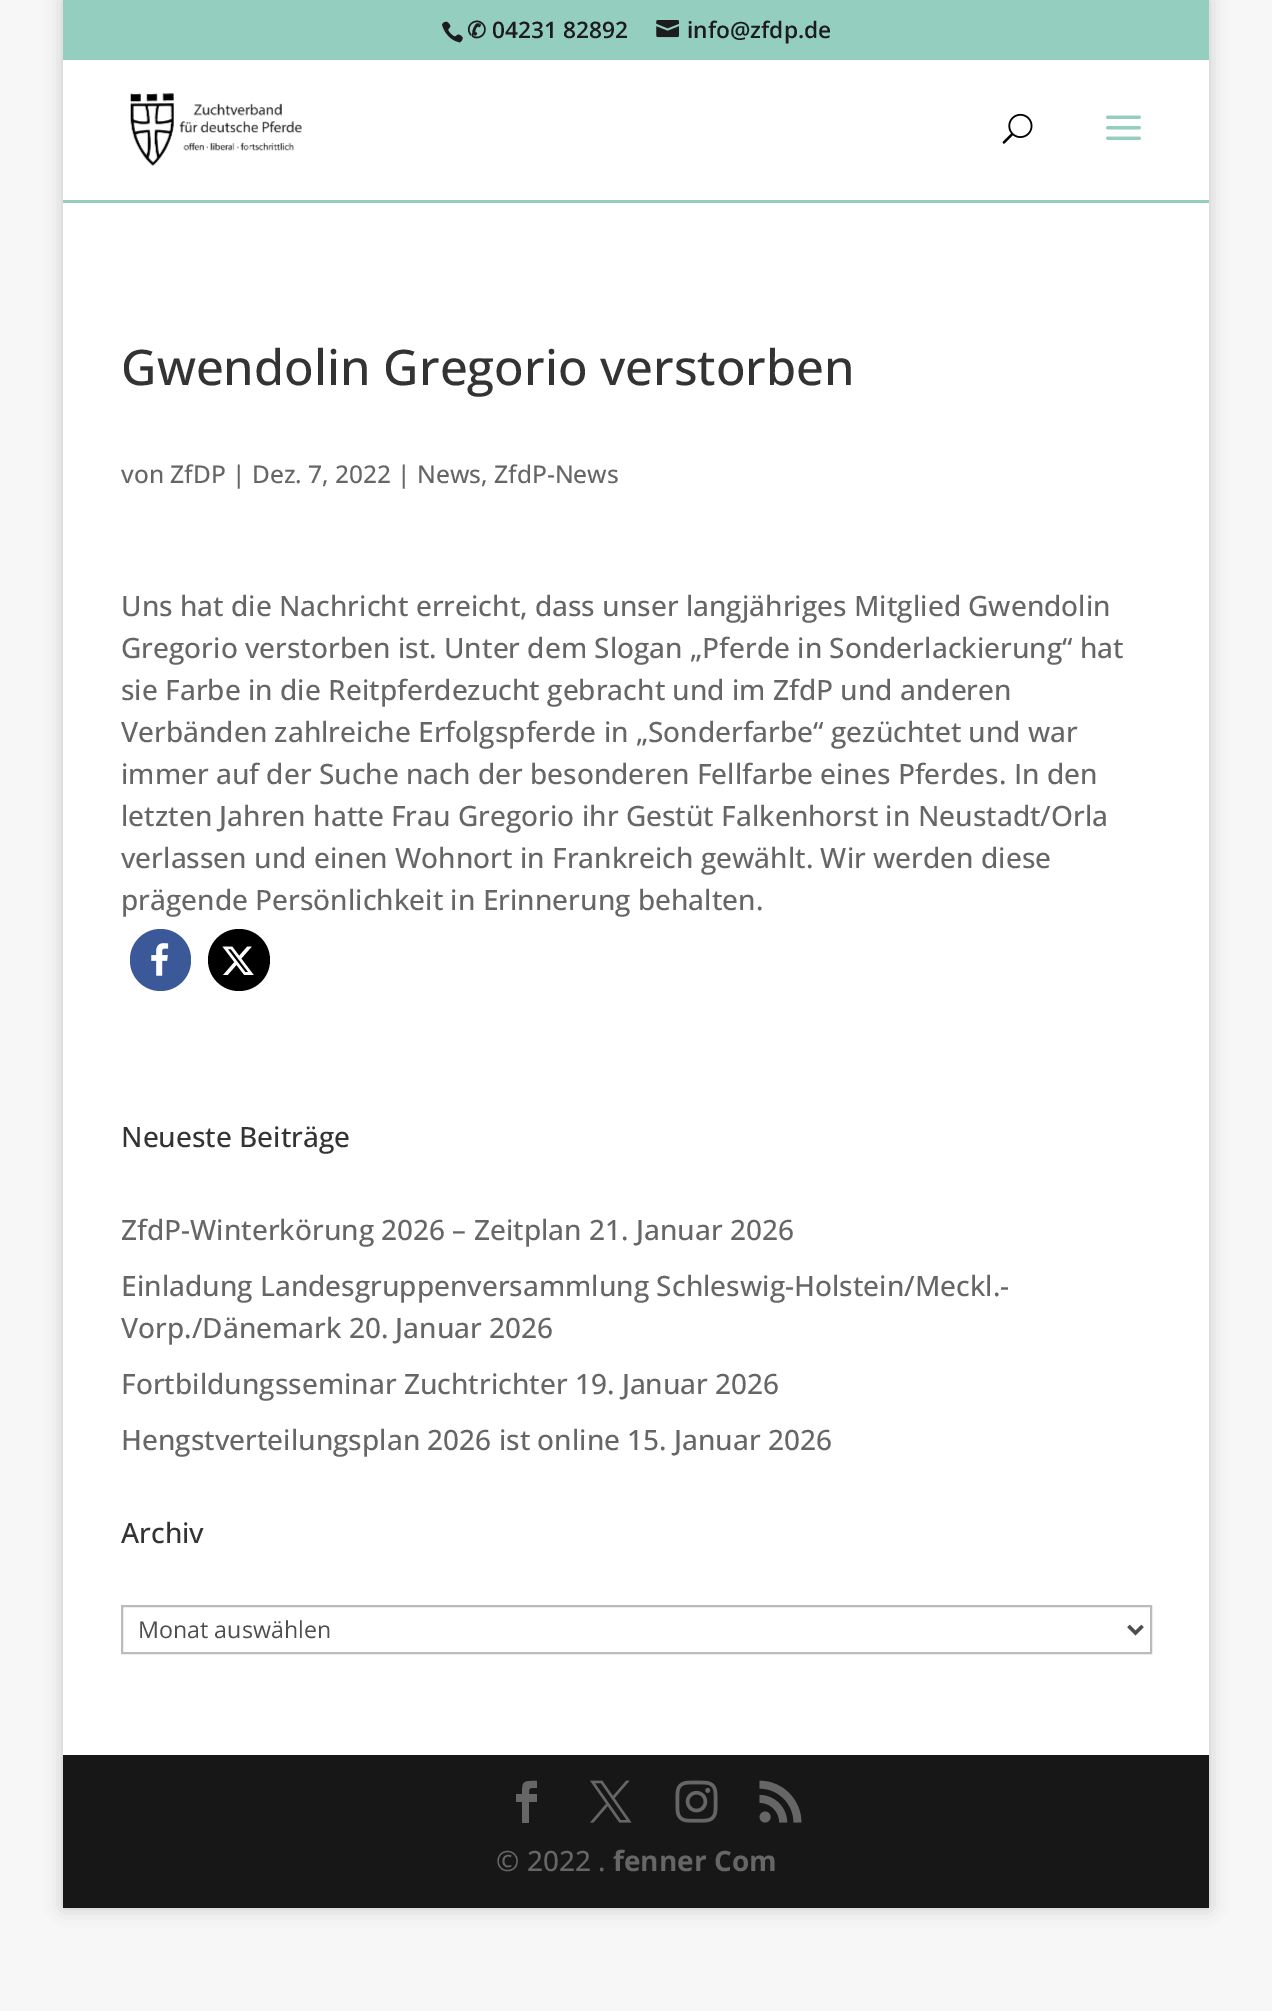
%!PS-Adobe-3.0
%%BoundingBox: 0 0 1272 2011
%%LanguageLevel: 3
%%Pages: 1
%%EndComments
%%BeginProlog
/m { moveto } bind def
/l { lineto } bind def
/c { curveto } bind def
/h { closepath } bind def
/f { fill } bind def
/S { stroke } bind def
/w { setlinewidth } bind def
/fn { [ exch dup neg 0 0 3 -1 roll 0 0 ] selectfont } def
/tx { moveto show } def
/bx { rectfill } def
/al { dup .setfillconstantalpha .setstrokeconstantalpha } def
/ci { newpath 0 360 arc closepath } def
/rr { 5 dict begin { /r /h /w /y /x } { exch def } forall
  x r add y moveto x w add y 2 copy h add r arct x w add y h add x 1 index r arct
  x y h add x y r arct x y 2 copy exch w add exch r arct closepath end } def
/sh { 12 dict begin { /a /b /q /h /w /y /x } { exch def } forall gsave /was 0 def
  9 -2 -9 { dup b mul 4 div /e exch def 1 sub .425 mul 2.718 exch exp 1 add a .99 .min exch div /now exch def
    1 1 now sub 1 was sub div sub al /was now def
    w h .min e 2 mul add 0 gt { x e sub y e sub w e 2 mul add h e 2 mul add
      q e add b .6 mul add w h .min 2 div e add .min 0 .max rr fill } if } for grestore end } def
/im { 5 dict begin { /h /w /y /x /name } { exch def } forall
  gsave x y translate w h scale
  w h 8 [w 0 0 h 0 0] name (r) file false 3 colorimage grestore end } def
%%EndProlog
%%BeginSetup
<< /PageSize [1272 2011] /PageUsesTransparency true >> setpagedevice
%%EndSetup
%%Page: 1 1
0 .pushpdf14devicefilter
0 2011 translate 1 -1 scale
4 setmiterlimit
0.969 setgray
0 0 1272 2011 bx
0 setgray
63 0 1146 1908 0 9 0.2 sh
0.58 0.808 0.749 setrgbcolor
63 0 1146 60 bx
(image0.raw) 442 21 21 22 im
/DejaVuSans-Bold 22.75 fn
0.11 setgray
(✆) 467 38 tx
/OpenSans-SemiBold 22.75 fn
(04231 82892) 492 38 tx
(image1.raw) 656 20 23 18 im
(info@zfdp.de) 687 38 tx
0.58 0.808 0.749 setrgbcolor
63 200 1146 3 bx
1 setgray
63 60 1146 140 bx
(image2.raw) 130 93 172 73 im
(image3.raw) 1002 113 31 31 im
(image4.raw) 1106 115 35 25 im
63 203 1146 1552 bx
/OpenSans-Medium 49 fn
0.2 setgray
(Gwendolin Gregorio verstorben) 121 385 tx
/OpenSans-Medium 24.5 fn
0.4 setgray
(von ZfDP | Dez. 7, 2022 | News, ZfdP-News) 121 483 tx
/OpenSans-Medium 28 fn
(Uns hat die Nachricht erreicht, dass unser langjähriges Mitglied Gwendolin) 121 616 tx
(Gregorio verstorben ist. Unter dem Slogan „Pferde in Sonderlackierung“ hat) 121 658 tx
(sie Farbe in die Reitpferdezucht gebracht und im ZfdP und anderen) 121 700 tx
(Verbänden zahlreiche Erfolgspferde in „Sonderfarbe“ gezüchtet und war) 121 742 tx
(immer auf der Suche nach der besonderen Fellfarbe eines Pferdes. In den) 121 784 tx
(letzten Jahren hatte Frau Gregorio ihr Gestüt Falkenhorst in Neustadt/Orla) 121 826 tx
(verlassen und einen Wohnort in Frankreich gewählt. Wir werden diese) 121 868 tx
(prägende Persönlichkeit in Erinnerung behalten.) 121 910 tx
0.231 0.349 0.596 setrgbcolor
130 929 61 62 30.5 rr f
(image5.raw) 151 943 18 33 im
0 setgray
239 960 31 ci f
(image6.raw) 222 946 32 29 im
0.2 setgray
(Neueste Beiträge) 121 1147 tx
0.4 setgray
(ZfdP-Winterkörung 2026 – Zeitplan 21. Januar 2026) 121 1240 tx
(Einladung Landesgruppenversammlung Schleswig-Holstein/Meckl.-) 121 1296 tx
(Vorp./Dänemark 20. Januar 2026) 121 1338 tx
(Fortbildungsseminar Zuchtrichter 19. Januar 2026) 121 1394 tx
(Hengstverteilungsplan 2026 ist online 15. Januar 2026) 121 1450 tx
0.2 setgray
(Archiv) 121 1543 tx
0.733 setgray
2 w
122 1606 1029 47 rectstroke
0.306 setgray
3.5 w
1128.5 1626 m 1135.5 1633 l 1142.5 1626 l S
/OpenSans-Regular 23.25 fn
(Monat auswählen) 138 1638 tx
0.09 setgray
63 1755 1146 153 bx
0.4 setgray
522 1823 m 529 1823 l 529 1802 l 537 1802 l 537 1794 l 529 1794 l 529 1787 529 1788 537 1788 c 537 1781 l 524 1781 522 1780 522 1794 c 516 1794 l 516 1802 l 522 1802 l h f
(image7.raw) 590 1780 42 43 im
(image8.raw) 675 1780 43 43 im
(image9.raw) 759 1780 43 43 im
/OpenSans-Medium 28 fn
(© 2022 .) 496 1871 tx
/OpenSans-Bold 28 fn
(fenner Com) 613 1871 tx
.poppdf14devicefilter showpage
%%EOF
